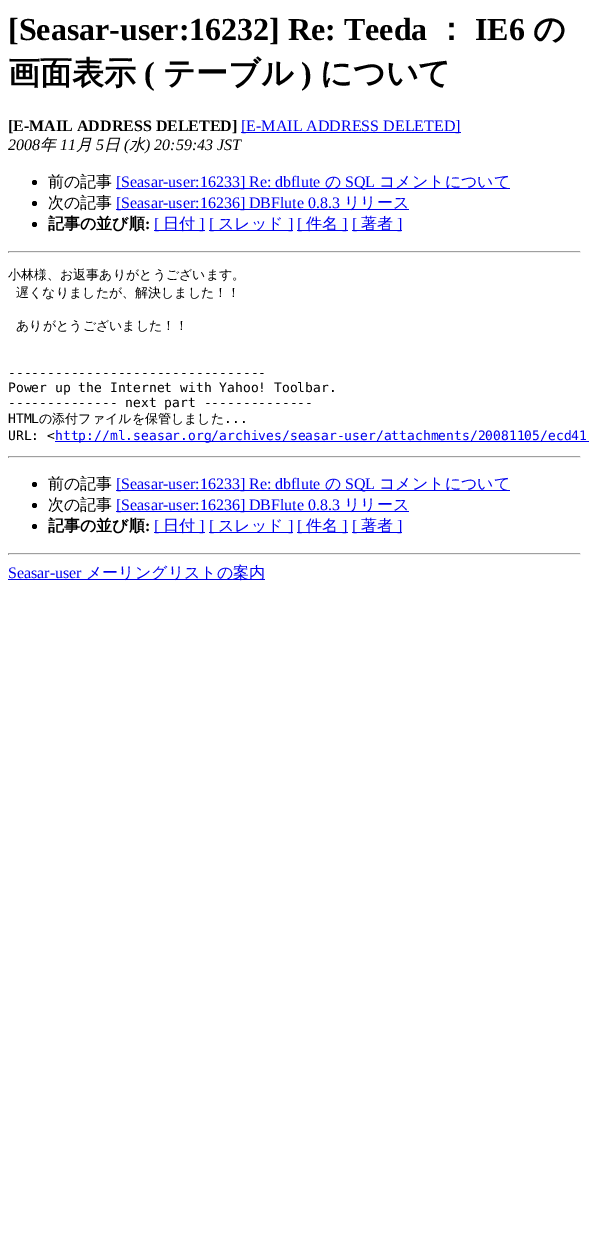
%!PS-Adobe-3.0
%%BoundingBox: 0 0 589 1243
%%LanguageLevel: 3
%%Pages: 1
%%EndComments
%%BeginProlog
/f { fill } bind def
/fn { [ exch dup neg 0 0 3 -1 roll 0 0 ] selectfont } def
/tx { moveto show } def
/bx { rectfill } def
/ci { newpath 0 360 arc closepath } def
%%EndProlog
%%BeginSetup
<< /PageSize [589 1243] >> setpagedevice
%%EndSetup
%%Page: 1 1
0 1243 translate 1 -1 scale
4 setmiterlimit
1 setgray
0 0 589 1243 bx
/LiberationSerif-Bold 32 fn
0 setgray
([Seasar-user:16232] Re: Teeda) 8 40 tx
/WenQuanYiZenHei-Bold 32 fn
(：) 435 40 tx
/LiberationSerif-Bold 32 fn
(IE6) 475 40 tx
/WenQuanYiZenHei-Bold 32 fn
(の) 533 40 tx
(画面表示) 8 84 tx
/LiberationSerif-Bold 32 fn
(\() 144 84 tx
/WenQuanYiZenHei-Bold 32 fn
(テーブル) 163 84 tx
/LiberationSerif-Bold 32 fn
(\)) 301 84 tx
/WenQuanYiZenHei-Bold 32 fn
(について) 320 84 tx
/LiberationSerif-Bold 16 fn
([E-MAIL ADDRESS DELETED]) 8 131 tx
0 0 0.933 setrgbcolor
241 132 220 1 bx
/LiberationSerif-Regular 16 fn
([E-MAIL ADDRESS DELETED]) 241 131 tx
/LiberationSerif-Italic 16 fn
0 setgray
(2008) 8 150 tx
/WenQuanYiZenHei-MediumItalic 16 fn
(年) 40 150 tx
/LiberationSerif-Italic 16 fn
(11) 60 150 tx
/WenQuanYiZenHei-MediumItalic 16 fn
(月) 76 150 tx
/LiberationSerif-Italic 16 fn
(5) 96 150 tx
/WenQuanYiZenHei-MediumItalic 16 fn
(日) 104 150 tx
/LiberationSerif-Italic 16 fn
(\() 124 150 tx
/WenQuanYiZenHei-MediumItalic 16 fn
(水) 129 150 tx
/LiberationSerif-Italic 16 fn
(\) 20:59:43 JST) 145 150 tx
34.5 182.5 2.5 ci f
/WenQuanYiZenHei-Medium 16 fn
(前の記事) 48 187 tx
0 0 0.933 setrgbcolor
116 188 394 1 bx
/LiberationSerif-Regular 16 fn
([Seasar-user:16233] Re: dbflute) 116 187 tx
/WenQuanYiZenHei-Medium 16 fn
(の) 325 187 tx
/LiberationSerif-Regular 16 fn
(SQL) 345 187 tx
/WenQuanYiZenHei-Medium 16 fn
(コメントについて) 379 187 tx
0 setgray
34.5 203.5 2.5 ci f
(次の記事) 48 208 tx
0 0 0.933 setrgbcolor
116 209 293 1 bx
/LiberationSerif-Regular 16 fn
([Seasar-user:16236] DBFlute 0.8.3) 116 208 tx
/WenQuanYiZenHei-Medium 16 fn
(リリース) 344 208 tx
0 setgray
34.5 224.5 2.5 ci f
/WenQuanYiZenHei-Bold 16 fn
(記事の並び順) 48 229 tx
/LiberationSerif-Bold 16 fn
(:) 145 229 tx
0 0 0.933 setrgbcolor
154 230 51 1 bx
/LiberationSerif-Regular 16 fn
([) 154 229 tx
/WenQuanYiZenHei-Medium 16 fn
(日付) 163 229 tx
/LiberationSerif-Regular 16 fn
(]) 199 229 tx
209 230 84 1 bx
([) 209 229 tx
/WenQuanYiZenHei-Medium 16 fn
(スレッド) 218 229 tx
/LiberationSerif-Regular 16 fn
(]) 288 229 tx
297 230 51 1 bx
([) 297 229 tx
/WenQuanYiZenHei-Medium 16 fn
(件名) 306 229 tx
/LiberationSerif-Regular 16 fn
(]) 342 229 tx
352 230 50 1 bx
([) 352 229 tx
/WenQuanYiZenHei-Medium 16 fn
(著者) 361 229 tx
/LiberationSerif-Regular 16 fn
(]) 397 229 tx
0.624 setgray
8 251 573 1 bx
0.933 setgray
580 251 1 2 bx
8 252 573 1 bx
0.624 setgray
8 251 1 2 bx
/WenQuanYiZenHei-Medium 13 fn
0 setgray
(小林様、お返事ありがとうございます。) 8 279 tx
(遅くなりましたが、解決しました！！) 16 297 tx
(ありがとうございました！！) 16 330 tx
/DejaVuSansMono-Regular 13 fn
(---------------------------------) 8 377 tx
(Power up the Internet with Yahoo! Toolbar.) 8 392 tx
(-------------- next part --------------) 8 407 tx
(HTML) 8 423 tx
/WenQuanYiZenHei-Medium 13 fn
(の添付ファイルを保管しました) 39 423 tx
/DejaVuSansMono-Regular 13 fn
(...) 224 423 tx
(URL: <) 8 440 tx
0 0 0.933 setrgbcolor
55 441 534 1 bx
(http://ml.seasar.org/archives/seasar-user/attachments/20081105/ecd41) 55 440 tx
0.624 setgray
8 456 573 1 bx
0.933 setgray
580 456 1 2 bx
8 457 573 1 bx
0.624 setgray
8 456 1 2 bx
0 setgray
34.5 484.5 2.5 ci f
/WenQuanYiZenHei-Medium 16 fn
(前の記事) 48 489 tx
0 0 0.933 setrgbcolor
116 490 394 1 bx
/LiberationSerif-Regular 16 fn
([Seasar-user:16233] Re: dbflute) 116 489 tx
/WenQuanYiZenHei-Medium 16 fn
(の) 325 489 tx
/LiberationSerif-Regular 16 fn
(SQL) 345 489 tx
/WenQuanYiZenHei-Medium 16 fn
(コメントについて) 379 489 tx
0 setgray
34.5 505.5 2.5 ci f
(次の記事) 48 510 tx
0 0 0.933 setrgbcolor
116 511 293 1 bx
/LiberationSerif-Regular 16 fn
([Seasar-user:16236] DBFlute 0.8.3) 116 510 tx
/WenQuanYiZenHei-Medium 16 fn
(リリース) 344 510 tx
0 setgray
34.5 526.5 2.5 ci f
/WenQuanYiZenHei-Bold 16 fn
(記事の並び順) 48 531 tx
/LiberationSerif-Bold 16 fn
(:) 145 531 tx
0 0 0.933 setrgbcolor
154 532 51 1 bx
/LiberationSerif-Regular 16 fn
([) 154 531 tx
/WenQuanYiZenHei-Medium 16 fn
(日付) 163 531 tx
/LiberationSerif-Regular 16 fn
(]) 199 531 tx
209 532 84 1 bx
([) 209 531 tx
/WenQuanYiZenHei-Medium 16 fn
(スレッド) 218 531 tx
/LiberationSerif-Regular 16 fn
(]) 288 531 tx
297 532 51 1 bx
([) 297 531 tx
/WenQuanYiZenHei-Medium 16 fn
(件名) 306 531 tx
/LiberationSerif-Regular 16 fn
(]) 342 531 tx
352 532 50 1 bx
([) 352 531 tx
/WenQuanYiZenHei-Medium 16 fn
(著者) 361 531 tx
/LiberationSerif-Regular 16 fn
(]) 397 531 tx
0.624 setgray
8 553 573 1 bx
0.933 setgray
580 553 1 2 bx
8 554 573 1 bx
0.624 setgray
8 553 1 2 bx
0 0 0.933 setrgbcolor
(Seasar-user) 8 578 tx
8 579 257 1 bx
/WenQuanYiZenHei-Medium 16 fn
(メーリングリストの案内) 86 578 tx
showpage
%%EOF
